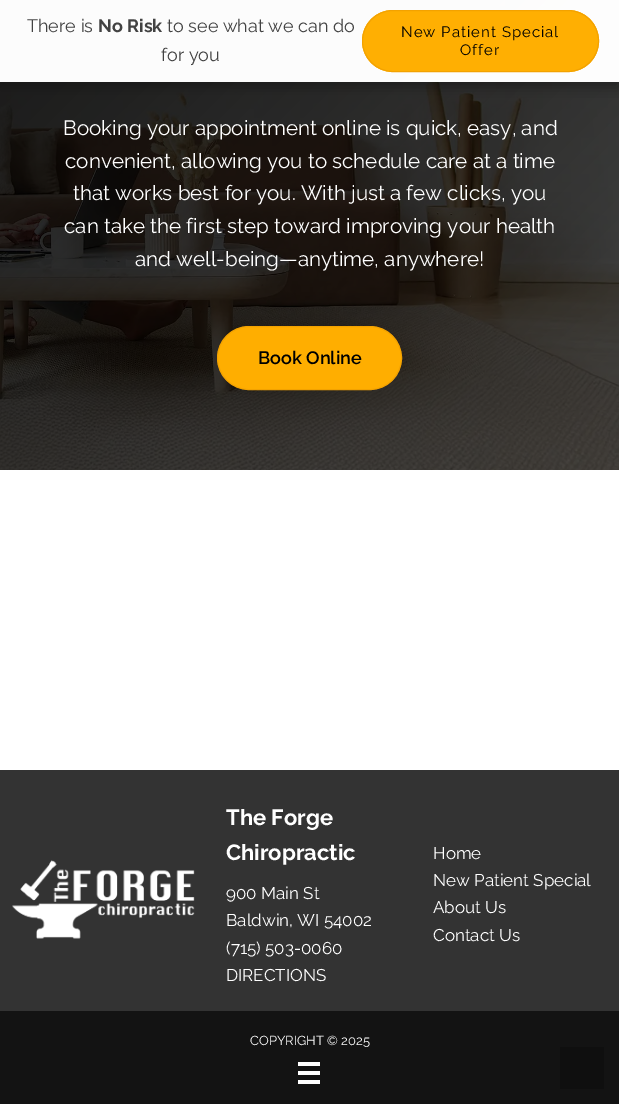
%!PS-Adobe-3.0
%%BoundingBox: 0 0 619 1104
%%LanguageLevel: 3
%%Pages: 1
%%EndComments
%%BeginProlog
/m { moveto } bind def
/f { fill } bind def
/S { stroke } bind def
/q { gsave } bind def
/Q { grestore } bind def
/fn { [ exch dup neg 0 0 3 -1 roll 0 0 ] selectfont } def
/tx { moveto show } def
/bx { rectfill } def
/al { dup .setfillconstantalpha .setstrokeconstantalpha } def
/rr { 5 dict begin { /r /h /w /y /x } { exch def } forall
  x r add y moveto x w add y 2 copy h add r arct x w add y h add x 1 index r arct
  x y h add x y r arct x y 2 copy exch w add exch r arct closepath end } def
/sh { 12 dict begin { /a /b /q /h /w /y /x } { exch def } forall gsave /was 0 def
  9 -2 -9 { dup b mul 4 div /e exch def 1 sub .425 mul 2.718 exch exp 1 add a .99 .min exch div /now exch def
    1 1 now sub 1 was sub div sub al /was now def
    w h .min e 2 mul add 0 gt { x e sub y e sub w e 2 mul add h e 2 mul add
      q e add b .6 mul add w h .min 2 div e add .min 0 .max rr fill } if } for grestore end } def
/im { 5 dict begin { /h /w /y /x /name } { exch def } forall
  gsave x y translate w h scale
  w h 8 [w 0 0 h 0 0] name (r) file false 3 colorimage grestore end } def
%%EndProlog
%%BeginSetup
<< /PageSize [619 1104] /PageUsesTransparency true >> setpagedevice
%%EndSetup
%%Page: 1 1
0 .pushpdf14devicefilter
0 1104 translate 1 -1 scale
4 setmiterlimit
1 setgray
0 0 619 1104 bx
(image0.raw) 0 0 619 470 im
q
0 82 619 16 rectclip
0.071 setgray
0 5 619 82 0 6.5 0.52 sh
Q
0.99 al
0 0 619 82 bx
/Raleway-Regular 18 fn
1 al
0.259 setgray
(There is) 27 32 tx
/Raleway-Bold 18 fn
(No Risk) 98 32 tx
/Raleway-Regular 18 fn
(to see what we can do) 167 32 tx
(for you) 161 61 tx
1 0.686 0.008 setrgbcolor
362 10 237 62 31 rr f
0.99 al
0.953 0.635 0 setrgbcolor
362.5 10.5 236 61 30.5 rr S
/Raleway-Regular 15 fn
1 al
0 setgray
401 37 m 1 0 (New Patient Special) ashow
460 55 m 1 0 (Offer) ashow
/Raleway-Regular 20.6 fn
1 setgray
(Booking your appointment online is quick, easy, and) 63 135 tx
(convenient, allowing you to schedule care at a time) 65 168 tx
(that works best for you. With just a few clicks, you) 73 200 tx
(can take the first step toward improving your health) 64 233 tx
(and well-being—anytime, anywhere!) 135 266 tx
1 0.682 0 setrgbcolor
217.5 326.5 184 63 31.5 rr q f Q
0.953 0.635 0 setrgbcolor
S
/Raleway-SemiBold 18 fn
0 setgray
(Book Online) 258 364 tx
0.2 setgray
0 770 619 241 bx
(image1.raw) 12 860 183 79 im
/Raleway-Bold 22 fn
1 setgray
(The Forge) 226 825 tx
(Chiropractic) 226 860 tx
/Raleway-Regular 17 fn
(900 Main St) 226 899 tx
(Baldwin, WI 54002) 226 926 tx
(\(715\) 503-0060) 226 954 tx
(DIRECTIONS) 226 981 tx
(Home) 433 859 tx
(New Patient Special) 433 886 tx
(About Us) 433 913 tx
(Contact Us) 433 941 tx
0.075 setgray
0 1011 619 93 bx
/Raleway-Regular 13 fn
1 setgray
(COPYRIGHT © 2025) 250 1045 tx
298 1062 22 4 bx
298 1071 22 4 bx
298 1080 22 4 bx
0.059 setgray
560 1047 44 42 bx
.poppdf14devicefilter showpage
%%EOF
